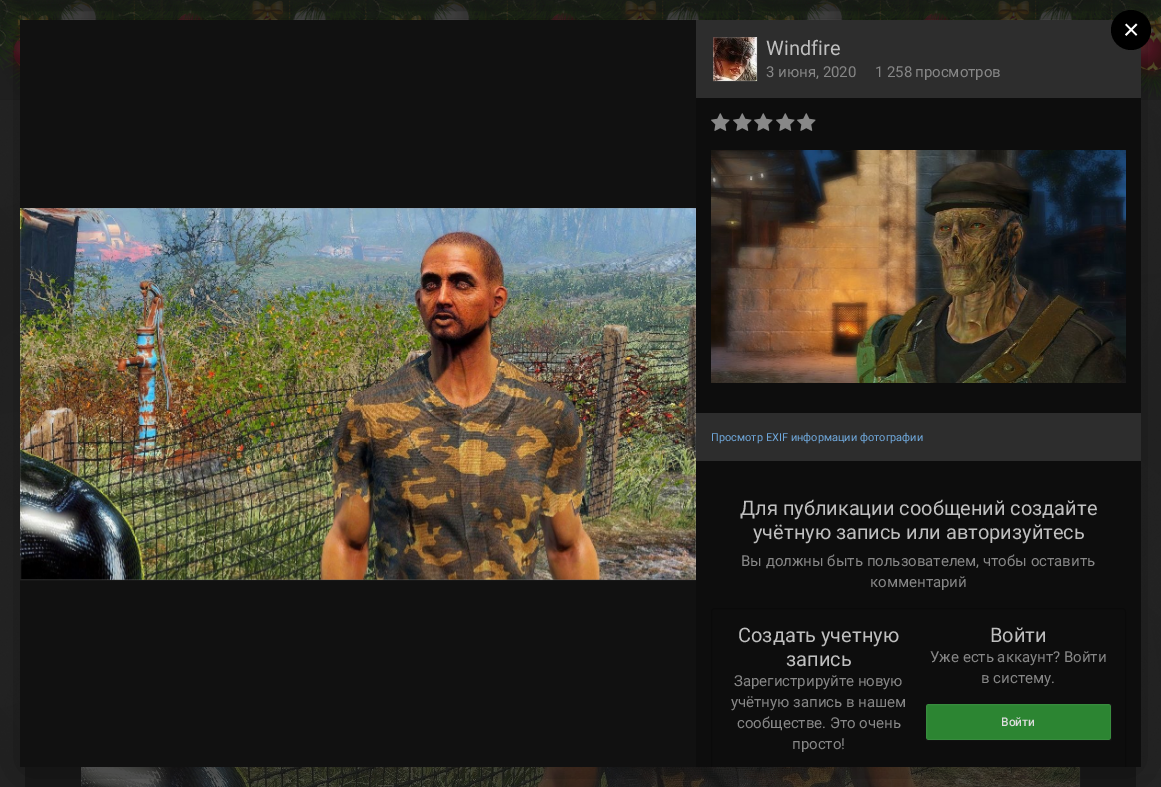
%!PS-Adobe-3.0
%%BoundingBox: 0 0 1161 787
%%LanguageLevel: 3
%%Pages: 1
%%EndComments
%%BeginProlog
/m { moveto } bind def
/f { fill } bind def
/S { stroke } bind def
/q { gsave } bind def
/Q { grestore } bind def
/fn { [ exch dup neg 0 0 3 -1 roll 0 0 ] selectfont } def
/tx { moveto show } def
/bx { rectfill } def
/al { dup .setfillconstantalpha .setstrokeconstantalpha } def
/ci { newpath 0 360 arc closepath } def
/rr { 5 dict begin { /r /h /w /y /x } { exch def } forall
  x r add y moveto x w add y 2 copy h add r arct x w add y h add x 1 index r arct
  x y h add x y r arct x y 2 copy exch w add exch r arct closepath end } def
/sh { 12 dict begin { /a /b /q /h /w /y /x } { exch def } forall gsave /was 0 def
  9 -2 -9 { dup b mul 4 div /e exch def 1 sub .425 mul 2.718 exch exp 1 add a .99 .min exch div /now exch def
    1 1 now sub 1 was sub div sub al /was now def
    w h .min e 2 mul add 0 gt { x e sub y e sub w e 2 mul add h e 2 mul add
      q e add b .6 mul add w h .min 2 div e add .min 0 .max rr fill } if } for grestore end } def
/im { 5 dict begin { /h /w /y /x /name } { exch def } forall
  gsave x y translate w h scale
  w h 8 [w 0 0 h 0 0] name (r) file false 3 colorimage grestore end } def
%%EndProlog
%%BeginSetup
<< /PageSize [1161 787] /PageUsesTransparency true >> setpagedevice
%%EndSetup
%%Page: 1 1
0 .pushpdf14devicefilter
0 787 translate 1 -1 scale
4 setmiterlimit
0.141 setgray
0 0 1161 787 bx
(image0.raw) 0 0 1161 787 im
0.9 al
0.133 setgray
0 0 1161 100 bx
1 al
(image1.raw) 0 0 1161 99 im
(image3.raw) 7 0 47 80 im
(image2.raw) 0 0 25 71 im
(image5.raw) 54 0 49 20 im
(image4.raw) 25 0 61 20 im
(image6.raw) 157 0 9 20 im
(image7.raw) 173 0 35 20 im
(image8.raw) 177 0 28 20 im
(image10.raw) 245 0 45 20 im
(image13.raw) 225 6 4 14 im
(image9.raw) 205 0 49 20 im
(image11.raw) 288 0 44 20 im
(image12.raw) 111 9 3 11 im
(image16.raw) 344 10 3 10 im
(image14.raw) 289 0 78 20 im
(image15.raw) 367 0 6 20 im
(image18.raw) 385 0 42 20 im
(image17.raw) 373 0 25 20 im
(image20.raw) 427 0 49 20 im
(image19.raw) 398 0 61 20 im
(image21.raw) 530 0 9 20 im
(image22.raw) 546 0 35 20 im
(image23.raw) 550 0 28 20 im
(image25.raw) 618 0 45 20 im
(image13.raw) 598 6 4 14 im
(image24.raw) 578 0 49 20 im
(image26.raw) 661 0 44 20 im
(image12.raw) 484 9 3 11 im
(image16.raw) 717 10 3 10 im
(image27.raw) 662 0 78 20 im
(image28.raw) 740 0 6 20 im
(image30.raw) 758 0 42 20 im
(image29.raw) 746 0 25 20 im
(image32.raw) 800 0 49 20 im
(image31.raw) 771 0 61 20 im
(image33.raw) 903 0 9 20 im
(image34.raw) 919 0 35 20 im
(image35.raw) 923 0 28 20 im
(image37.raw) 991 0 45 20 im
(image13.raw) 971 6 4 14 im
(image36.raw) 951 0 49 20 im
(image38.raw) 1034 0 44 20 im
(image12.raw) 857 9 3 11 im
(image16.raw) 1090 10 3 10 im
(image39.raw) 1035 0 78 20 im
(image40.raw) 1113 0 6 20 im
(image42.raw) 1141 0 20 82 im
(image41.raw) 1119 0 25 15 im
(image43.raw) 1144 0 17 24 im
0.082 setgray
0 -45 1161 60 0 15 0.75 sh
0.102 setgray
25 767 1111 20 bx
(image48.raw) 81 767 999 20 im
0.15 al
0.306 setgray
81.5 308.5 998 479 rectstroke
1 al
0 setgray
20 25 1121 747 0 27.5 0.4 sh
0.176 setgray
696 20 445 78 bx
0 setgray
1131 30 20 ci f
/LiberationSans-Regular 28 fn
1 setgray
(×) 1123 39 tx
0.067 setgray
20 20 676 747 bx
(image44.raw) 20 208 676 372 im
0.15 al
0.749 setgray
20.5 208.5 675 371 rectstroke
1 al
0.051 setgray
696 98 445 669 bx
(image45.raw) 713 37 44 44 im
0.3 al
0.749 setgray
713.5 37.5 43 43 rectstroke
/Roboto-Regular 20 fn
1 al
(Windfire) 766 55 tx
/Roboto-Regular 15 fn
0.529 setgray
(3 июня, 2020) 766 77 tx
(1) 875 77 tx
887 77 m -1 0 32 (258 просмотров) widthshow
(image46.raw) 711 113 19 18 im
(image46.raw) 733 113 19 18 im
(image46.raw) 754 113 19 18 im
(image46.raw) 776 113 19 18 im
(image46.raw) 797 113 19 18 im
(image47.raw) 711 150 415 233 im
0.176 setgray
696 413 445 48 bx
/Roboto-Regular 11 fn
0.435 0.659 0.863 setrgbcolor
(Просмотр EXIF информации фотографии) 711 441 tx
/Roboto-Regular 20 fn
0.749 setgray
(Для публикации сообщений создайте) 740 515 tx
(учётную запись или авторизуйтесь) 753 539 tx
/Roboto-Regular 15 fn
0.529 setgray
(Вы должны быть пользователем, чтобы оставить) 741 566 tx
(комментарий) 870 587 tx
q
696 20 445 747 rectclip
0.039 setgray
711.5 608.5 414 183 3.5 rr S
Q
/Roboto-Regular 20 fn
0.749 setgray
(Создать учетную) 738 642 tx
(запись) 786 666 tx
/Roboto-Regular 15 fn
0.529 setgray
(Зарегистрируйте новую) 734 686 tx
(учётную запись в нашем) 731 707 tx
(сообществе. Это очень) 737 728 tx
(просто!) 792 749 tx
/Roboto-Regular 20 fn
0.749 setgray
(Войти) 990 642 tx
/Roboto-Regular 15 fn
0.529 setgray
(Уже есть аккаунт? Войти) 930 662 tx
(в систему.) 981 683 tx
0.173 0.522 0.196 setrgbcolor
926 704 185 36 3 rr f
0.06 al
1 setgray
926.5 704.5 184 35 rectstroke
/Roboto-Medium 12 fn
1 al
0.867 setgray
(Войти) 1001 726 tx
.poppdf14devicefilter showpage
%%EOF
